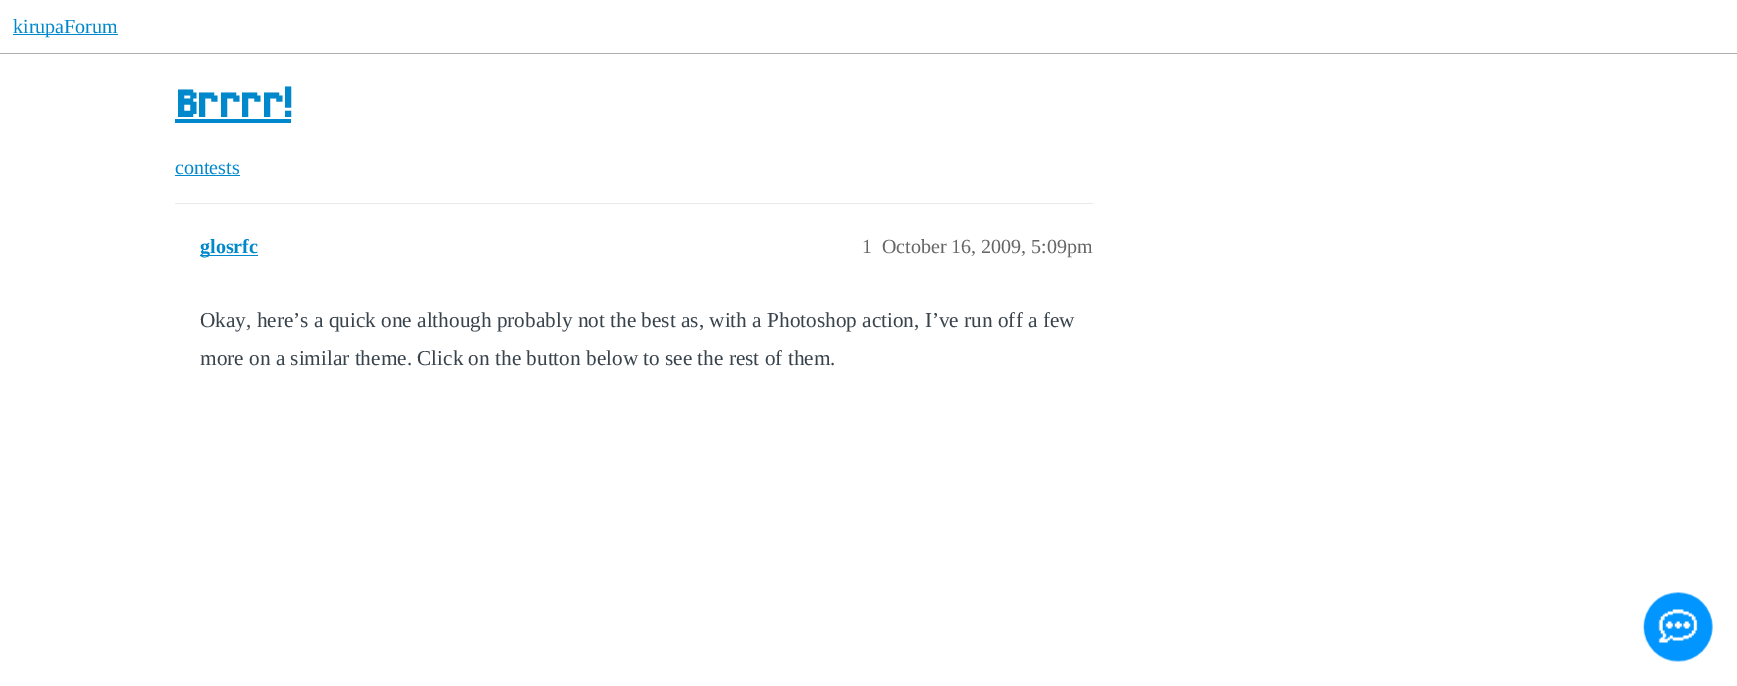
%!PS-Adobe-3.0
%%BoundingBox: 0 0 1737 686
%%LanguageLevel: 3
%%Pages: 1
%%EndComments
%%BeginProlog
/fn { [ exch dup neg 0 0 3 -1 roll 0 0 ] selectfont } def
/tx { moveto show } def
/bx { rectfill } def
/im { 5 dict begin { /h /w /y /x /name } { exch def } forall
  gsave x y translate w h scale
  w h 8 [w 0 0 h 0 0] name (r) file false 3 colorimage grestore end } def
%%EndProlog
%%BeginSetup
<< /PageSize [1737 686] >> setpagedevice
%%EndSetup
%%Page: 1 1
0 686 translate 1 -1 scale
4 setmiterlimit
1 setgray
0 0 1737 686 bx
0.686 setgray
0 53 1737 1 bx
0 0.533 0.8 setrgbcolor
13 34 105 1 bx
/LiberationSerif-Regular 20 fn
(kirupaForum) 13 33 tx
/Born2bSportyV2-Medium 49 fn
(Brrrr!) 175 117 tx
175 119 116 4 bx
/LiberationSerif-Regular 20 fn
(contests) 175 174 tx
175 175 65 1 bx
0.914 setgray
175 203 918 1 bx
0 0.533 0.8 setrgbcolor
200 255 58 1 bx
/LiberationSerif-Bold 20 fn
(glosrfc) 200 253 tx
/LiberationSerif-Regular 20 fn
0.4 setgray
(1) 862 253 tx
(October 16, 2009, 5:09pm) 882 253 tx
/LiberationSerif-Regular 21.25 fn
0.224 0.263 0.298 setrgbcolor
(Okay, here’s a quick one although probably not the best as, with a Photoshop action, I’ve run off a few) 200 327 tx
(more on a similar theme. Click on the button below to see the rest of them.) 200 365 tx
(image0.raw) 1643 592 70 70 im
showpage
%%EOF
